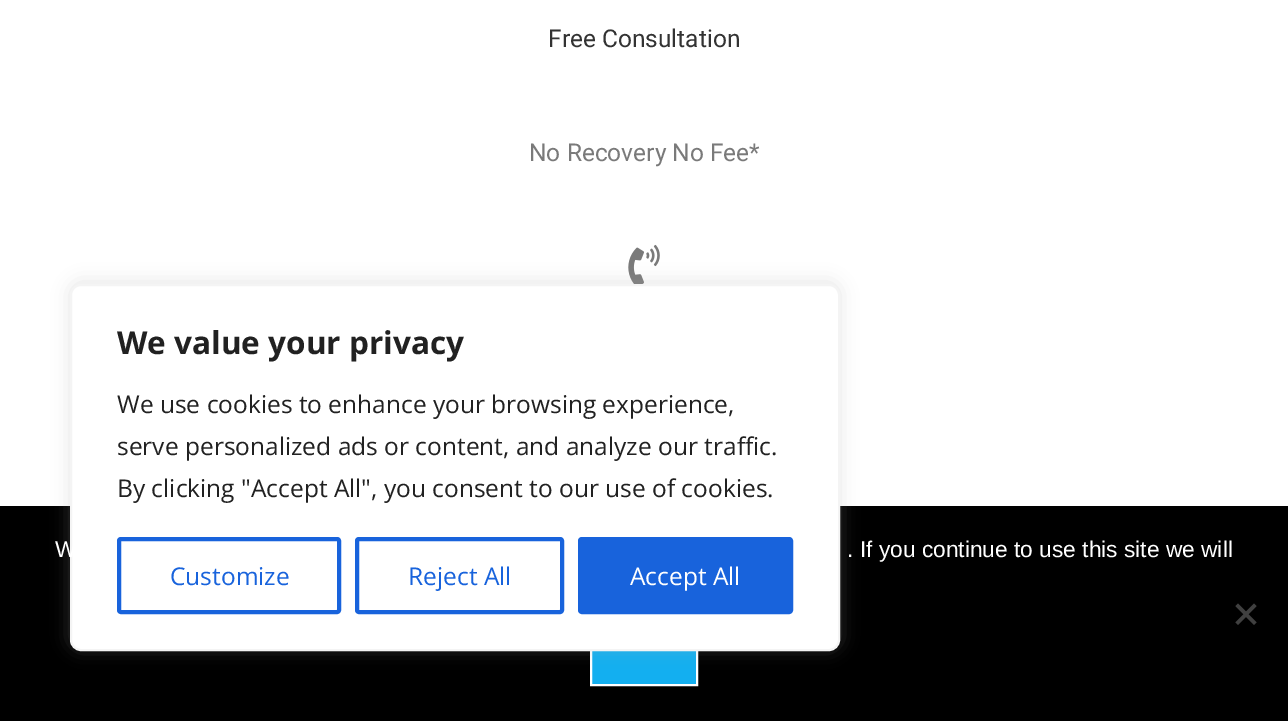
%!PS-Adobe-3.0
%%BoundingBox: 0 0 1288 721
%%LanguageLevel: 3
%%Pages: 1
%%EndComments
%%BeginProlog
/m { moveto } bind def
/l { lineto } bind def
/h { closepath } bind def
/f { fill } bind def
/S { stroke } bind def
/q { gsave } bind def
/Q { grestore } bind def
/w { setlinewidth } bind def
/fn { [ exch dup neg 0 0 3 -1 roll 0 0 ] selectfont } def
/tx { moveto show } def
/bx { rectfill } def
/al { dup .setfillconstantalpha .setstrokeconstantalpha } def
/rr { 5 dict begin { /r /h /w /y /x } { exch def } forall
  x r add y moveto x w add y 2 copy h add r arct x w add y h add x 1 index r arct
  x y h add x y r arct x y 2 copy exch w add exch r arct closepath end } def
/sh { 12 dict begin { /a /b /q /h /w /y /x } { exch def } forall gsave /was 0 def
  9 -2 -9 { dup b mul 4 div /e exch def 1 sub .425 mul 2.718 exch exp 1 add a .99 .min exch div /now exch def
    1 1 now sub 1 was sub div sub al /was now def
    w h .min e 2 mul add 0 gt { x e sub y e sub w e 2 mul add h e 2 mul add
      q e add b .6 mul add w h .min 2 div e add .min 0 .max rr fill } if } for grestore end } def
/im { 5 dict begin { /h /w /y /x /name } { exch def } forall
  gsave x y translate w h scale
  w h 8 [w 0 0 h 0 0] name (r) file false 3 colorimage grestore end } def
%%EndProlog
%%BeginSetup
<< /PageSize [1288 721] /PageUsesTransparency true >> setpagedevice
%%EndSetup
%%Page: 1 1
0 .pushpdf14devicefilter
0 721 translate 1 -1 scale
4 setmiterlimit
1 setgray
0 0 1288 721 bx
/Roboto-Regular 24.5 fn
0.2 setgray
(Free Consultation) 548 47 tx
0.478 setgray
(No Recovery No Fee*) 529 161 tx
(image0.raw) 628 244 32 40 im
0 setgray
0 506 1288 215 bx
0.075 0.686 0.941 setrgbcolor
592 651 104 33 bx
1 setgray
2 w
591 614 106 71 rectstroke
0.675 0.671 0.671 setrgbcolor
70 282 770 367 11 9 0.3 sh
1 setgray
71 285 768 365 10 rr q f Q
0.957 setgray
S
/OpenSans-Bold 31.5 fn
0.129 setgray
(We value your privacy) 117 354 tx
/OpenSans-Regular 24.5 fn
(We use cookies to enhance your browsing experience,) 117 413 tx
(serve personalized ads or content, and analyze our traffic.) 117 455 tx
(By clicking "Accept All", you consent to our use of cookies.) 117 497 tx
0.094 0.388 0.863 setrgbcolor
4 w
119 539 220 73 2 rr S
(Customize) 170 585 tx
357 539 205 73 2 rr S
(Reject All) 408 585 tx
580 539 211 73 2 rr q f Q
S
1 setgray
(Accept All) 630 585 tx
/LiberationSans-Regular 22.75 fn
(W) 55 557 tx
(. If you continue to use this site we will) 847 557 tx
0.251 setgray
1254 603.5 m 1256.5 606 l 1238 625 l 1235.5 622.5 l h f
1235.5 606 m 1238 603.5 l 1256.5 622.5 l 1254 625 l h f
.poppdf14devicefilter showpage
%%EOF
